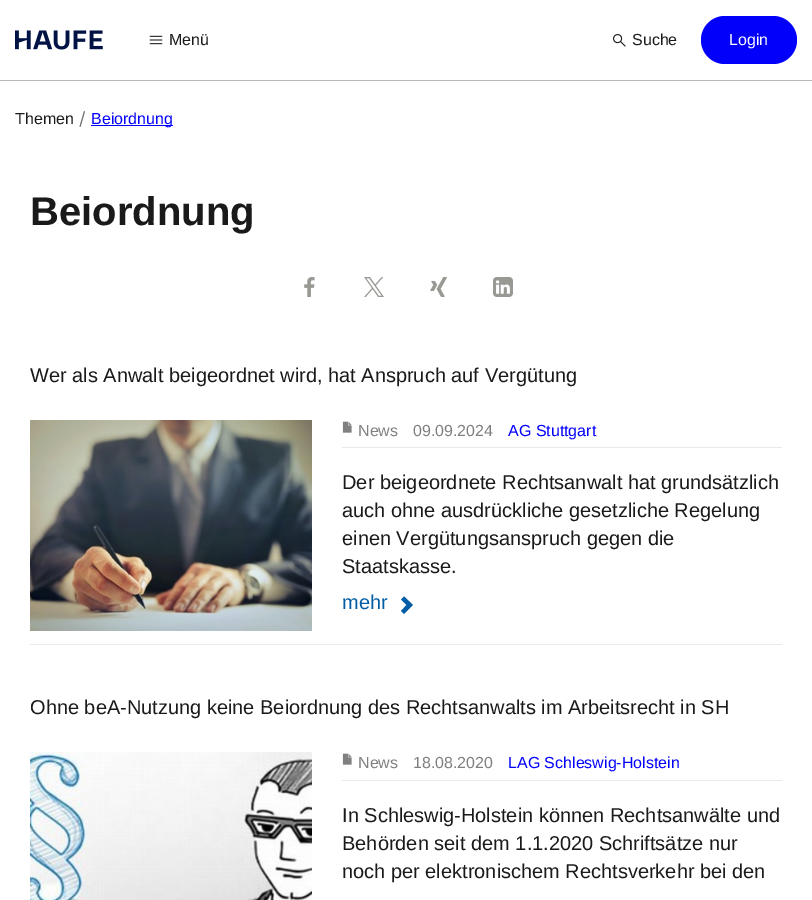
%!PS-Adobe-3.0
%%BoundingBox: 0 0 812 900
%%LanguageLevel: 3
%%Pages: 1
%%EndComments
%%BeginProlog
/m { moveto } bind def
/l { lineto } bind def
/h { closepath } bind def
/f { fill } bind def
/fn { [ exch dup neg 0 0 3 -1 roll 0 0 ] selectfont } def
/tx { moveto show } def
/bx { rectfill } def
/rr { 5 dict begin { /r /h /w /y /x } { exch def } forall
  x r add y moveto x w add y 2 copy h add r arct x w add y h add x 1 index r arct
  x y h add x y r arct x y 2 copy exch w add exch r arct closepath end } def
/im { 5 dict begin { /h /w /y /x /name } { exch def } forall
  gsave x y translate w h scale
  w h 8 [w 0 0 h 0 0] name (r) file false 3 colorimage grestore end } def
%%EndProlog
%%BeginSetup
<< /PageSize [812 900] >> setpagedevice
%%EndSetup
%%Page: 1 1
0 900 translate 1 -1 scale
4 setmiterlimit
1 setgray
0 0 812 900 bx
(image0.raw) 15 30 88 20 im
(image1.raw) 149 35 14 10 im
/LiberationSans-Regular 16 fn
0.102 setgray
(Menü) 169 45 tx
(image2.raw) 613 34 13 13 im
(Suche) 632 45 tx
0.008 0 0.98 setrgbcolor
701 16 96 48 24 rr f
1 setgray
(Login) 729 45 tx
0.722 setgray
0 80 812 1 bx
0.102 setgray
(Themen) 15 124 tx
0.475 0.471 0.463 setrgbcolor
84 111 m 85 111.5 l 80.5 127 l 79.5 126.5 l h f
0.008 0 0.98 setrgbcolor
91 125 82 1 bx
(Beiordnung) 91 124 tx
/LiberationSans-Bold 40 fn
0.102 setgray
(Beiordnung) 30 225 tx
(image3.raw) 304 277 11 20 im
(image4.raw) 364 277 20 20 im
(image5.raw) 430 277 17 20 im
(image6.raw) 493 277 20 20 im
/LiberationSans-Regular 20 fn
(Wer als Anwalt beigeordnet wird, hat Anspruch auf Vergütung) 30 382 tx
(image7.raw) 30 420 282 211 im
0.914 0.914 0.898 setrgbcolor
342 447 440 1 bx
(image8.raw) 342 421 10 12 im
/LiberationSans-Regular 16 fn
0.502 setgray
(News) 358 436 tx
(09.09.2024) 413 436 tx
0.008 0 0.98 setrgbcolor
(AG Stuttgart) 508 436 tx
/LiberationSans-Regular 20 fn
0.102 setgray
(Der beigeordnete Rechtsanwalt hat grundsätzlich) 342 489 tx
(auch ohne ausdrückliche gesetzliche Regelung) 342 517 tx
(einen Vergütungsanspruch gegen die) 342 545 tx
(Staatskasse.) 342 573 tx
0 0.365 0.647 setrgbcolor
(mehr) 342 609 tx
404 614 m 401 611 l 406.5 605 l 401 599.5 l 404 596.5 l 413 605 l h f
0.914 0.914 0.898 setrgbcolor
30 644 752 1 bx
0.102 setgray
(Ohne beA-Nutzung keine Beiordnung des Rechtsanwalts im Arbeitsrecht in SH) 30 714 tx
(image9.raw) 30 752 282 148 im
0.914 0.914 0.898 setrgbcolor
342 780 440 1 bx
(image8.raw) 342 753 10 12 im
/LiberationSans-Regular 16 fn
0.502 setgray
(News) 358 768 tx
(18.08.2020) 413 768 tx
0.008 0 0.98 setrgbcolor
(LAG Schleswig-Holstein) 508 768 tx
/LiberationSans-Regular 20 fn
0.102 setgray
(In Schleswig-Holstein können Rechtsanwälte und) 342 822 tx
(Behörden seit dem 1.1.2020 Schriftsätze nur) 342 850 tx
(noch per elektronischem Rechtsverkehr bei den) 342 878 tx
showpage
%%EOF
